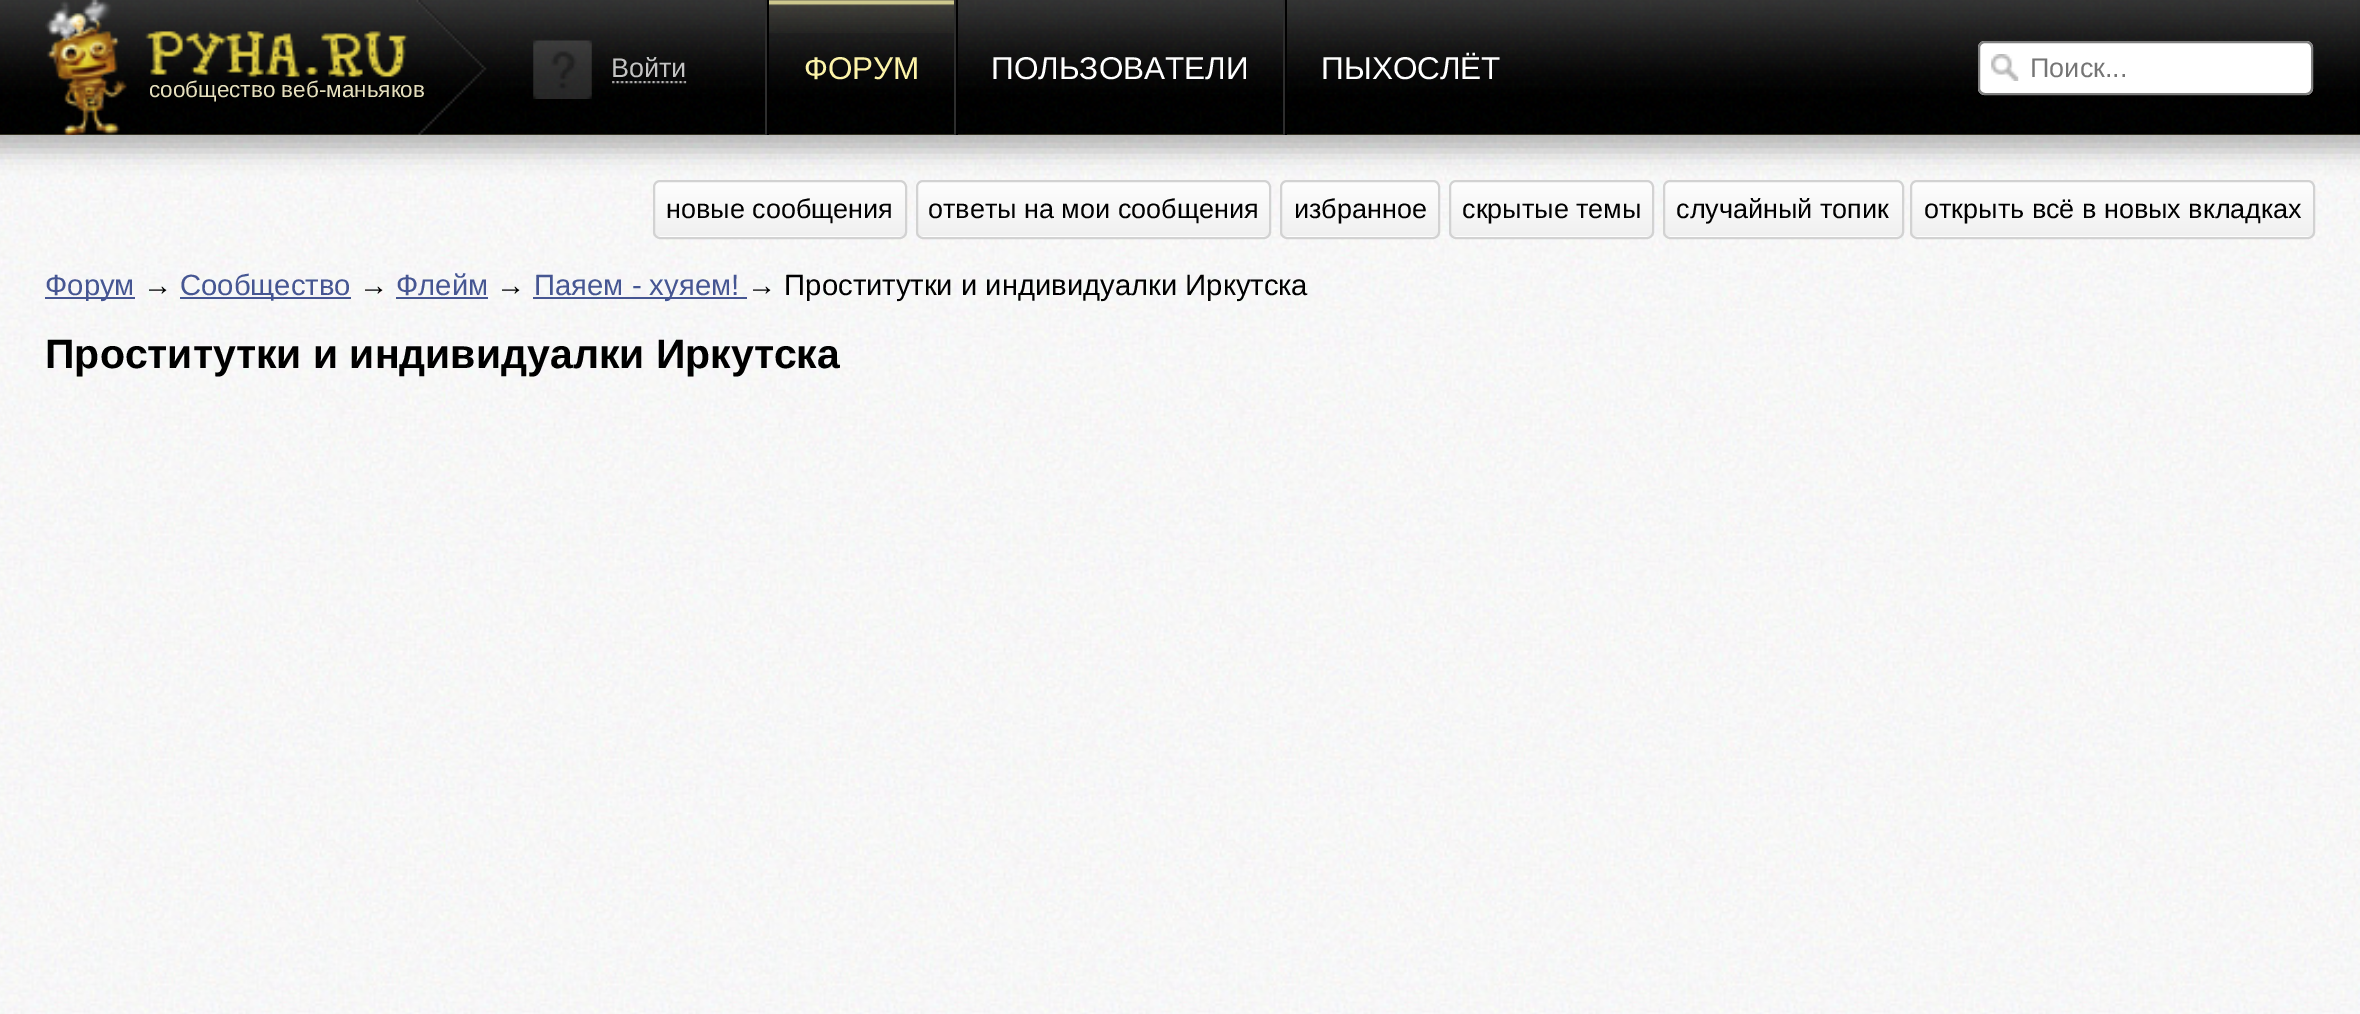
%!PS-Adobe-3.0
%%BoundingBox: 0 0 2360 1014
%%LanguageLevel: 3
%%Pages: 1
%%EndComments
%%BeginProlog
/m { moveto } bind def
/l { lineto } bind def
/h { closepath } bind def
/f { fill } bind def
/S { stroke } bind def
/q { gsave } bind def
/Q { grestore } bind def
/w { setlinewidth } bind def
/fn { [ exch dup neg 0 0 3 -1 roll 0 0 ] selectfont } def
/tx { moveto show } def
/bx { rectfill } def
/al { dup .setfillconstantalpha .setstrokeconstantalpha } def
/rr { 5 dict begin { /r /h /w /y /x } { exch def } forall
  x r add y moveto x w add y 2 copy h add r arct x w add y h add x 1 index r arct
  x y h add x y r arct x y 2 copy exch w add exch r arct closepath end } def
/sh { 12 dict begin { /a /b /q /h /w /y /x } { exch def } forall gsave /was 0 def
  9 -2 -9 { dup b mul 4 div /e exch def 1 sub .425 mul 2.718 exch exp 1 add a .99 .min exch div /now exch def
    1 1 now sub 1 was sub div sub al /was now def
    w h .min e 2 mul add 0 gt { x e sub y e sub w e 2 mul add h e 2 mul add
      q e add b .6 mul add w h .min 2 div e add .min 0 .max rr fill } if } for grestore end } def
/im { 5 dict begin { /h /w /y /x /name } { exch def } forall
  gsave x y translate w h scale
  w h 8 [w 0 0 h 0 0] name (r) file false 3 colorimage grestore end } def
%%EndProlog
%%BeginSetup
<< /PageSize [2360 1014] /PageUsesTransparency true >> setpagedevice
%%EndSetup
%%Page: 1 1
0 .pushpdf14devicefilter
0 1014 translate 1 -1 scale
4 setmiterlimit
1 setgray
0 0 2360 1014 bx
(image0.raw) 0 135 2360 879 im
0 setgray
-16 -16 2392 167 0 11 0.25 sh
2357 0 3 135 bx
(image1.raw) 0 0 2357 135 im
(image2.raw) 0 0 2360 135 im
0.18 setgray
765 0 2 135 bx
(image3.raw) 533 40 59 59 im
/LiberationSans-Regular 27 fn
0.765 setgray
(Войти) 611 77 tx
(image4.raw) 612 81 75 3 im
(image5.raw) 769 0 185 33 im
0.18 setgray
954 0 2 135 bx
0 setgray
767 0 2 135 bx
/LiberationSans-Regular 31.5 fn
0.992 0.957 0.663 setrgbcolor
(ФОРУМ) 804 79 tx
0.18 setgray
1283 0 2 135 bx
0 setgray
956 0 2 135 bx
1 setgray
(ПОЛЬЗОВАТЕЛИ) 991 79 tx
0 setgray
1285 0 2 135 bx
1 setgray
(ПЫХОСЛЁТ) 1321 79 tx
1978 41 335 54 7 rr f
(image6.raw) 1991 54 28 27 im
0.498 setgray
2 w
1979 42 333 52 6 rr S
/LiberationSans-Regular 27 fn
0.459 setgray
(Поиск...) 2030 77 tx
(image7.raw) 45 0 442 135 im
/LiberationSans-Regular 22.5 fn
0.898 0.875 0.741 setrgbcolor
(сообщество веб-маньяков) 149 97 tx
q
653 180 254 59 7 rr clip newpath
q 653 182 m 907 182 l 907 236 l 653 236 l h clip newpath
<< /ShadingType 2 /ColorSpace /DeviceRGB /Coords [655 236 655 182] /Extend [true true] /Function << /FunctionType 2 /Domain [0 1] /C0 [0.941 0.941 0.941] /C1 [0.996 0.996 0.996] /N 1 >> >> shfill Q
q 653 236 m 907 236 l 907 239 l 653 239 l h clip newpath
<< /ShadingType 2 /ColorSpace /DeviceRGB /Coords [655 290 655 236] /Extend [true true] /Function << /FunctionType 2 /Domain [0 1] /C0 [0.941 0.941 0.941] /C1 [0.996 0.996 0.996] /N 1 >> >> shfill Q
Q
0.824 setgray
654 181 252 57 6 rr S
/LiberationSans-Regular 27 fn
0 setgray
(новые сообщения) 666 218 tx
q
916 180 355 59 7 rr clip newpath
q 916 182 m 1271 182 l 1271 236 l 916 236 l h clip newpath
<< /ShadingType 2 /ColorSpace /DeviceRGB /Coords [918 236 918 182] /Extend [true true] /Function << /FunctionType 2 /Domain [0 1] /C0 [0.941 0.941 0.941] /C1 [0.996 0.996 0.996] /N 1 >> >> shfill Q
q 916 236 m 1271 236 l 1271 239 l 916 239 l h clip newpath
<< /ShadingType 2 /ColorSpace /DeviceRGB /Coords [918 290 918 236] /Extend [true true] /Function << /FunctionType 2 /Domain [0 1] /C0 [0.941 0.941 0.941] /C1 [0.996 0.996 0.996] /N 1 >> >> shfill Q
Q
0.824 setgray
917 181 353 57 6 rr S
0 setgray
(ответы на мои сообщения) 928 218 tx
q
1280 180 160 59 7 rr clip newpath
q 1280 182 m 1440 182 l 1440 236 l 1280 236 l h clip newpath
<< /ShadingType 2 /ColorSpace /DeviceRGB /Coords [1283 236 1283 182] /Extend [true true] /Function << /FunctionType 2 /Domain [0 1] /C0 [0.941 0.941 0.941] /C1 [0.996 0.996 0.996] /N 1 >> >> shfill Q
q 1280 236 m 1440 236 l 1440 239 l 1280 239 l h clip newpath
<< /ShadingType 2 /ColorSpace /DeviceRGB /Coords [1283 290 1283 236] /Extend [true true] /Function << /FunctionType 2 /Domain [0 1] /C0 [0.941 0.941 0.941] /C1 [0.996 0.996 0.996] /N 1 >> >> shfill Q
Q
0.824 setgray
1281 181 158 57 6 rr S
0 setgray
(избранное) 1294 218 tx
q
1449 180 205 59 7 rr clip newpath
q 1449 182 m 1654 182 l 1654 236 l 1449 236 l h clip newpath
<< /ShadingType 2 /ColorSpace /DeviceRGB /Coords [1451 236 1451 182] /Extend [true true] /Function << /FunctionType 2 /Domain [0 1] /C0 [0.941 0.941 0.941] /C1 [0.996 0.996 0.996] /N 1 >> >> shfill Q
q 1449 236 m 1654 236 l 1654 239 l 1449 239 l h clip newpath
<< /ShadingType 2 /ColorSpace /DeviceRGB /Coords [1451 290 1451 236] /Extend [true true] /Function << /FunctionType 2 /Domain [0 1] /C0 [0.941 0.941 0.941] /C1 [0.996 0.996 0.996] /N 1 >> >> shfill Q
Q
0.824 setgray
1450 181 203 57 6 rr S
0 setgray
(скрытые темы) 1462 218 tx
q
1663 180 241 59 7 rr clip newpath
q 1663 182 m 1904 182 l 1904 236 l 1663 236 l h clip newpath
<< /ShadingType 2 /ColorSpace /DeviceRGB /Coords [1665 236 1665 182] /Extend [true true] /Function << /FunctionType 2 /Domain [0 1] /C0 [0.941 0.941 0.941] /C1 [0.996 0.996 0.996] /N 1 >> >> shfill Q
q 1663 236 m 1904 236 l 1904 239 l 1663 239 l h clip newpath
<< /ShadingType 2 /ColorSpace /DeviceRGB /Coords [1665 290 1665 236] /Extend [true true] /Function << /FunctionType 2 /Domain [0 1] /C0 [0.941 0.941 0.941] /C1 [0.996 0.996 0.996] /N 1 >> >> shfill Q
Q
0.824 setgray
1664 181 239 57 6 rr S
0 setgray
(случайный топик) 1676 218 tx
q
1910 180 405 59 7 rr clip newpath
q 1910 182 m 2315 182 l 2315 236 l 1910 236 l h clip newpath
<< /ShadingType 2 /ColorSpace /DeviceRGB /Coords [1913 236 1913 182] /Extend [true true] /Function << /FunctionType 2 /Domain [0 1] /C0 [0.941 0.941 0.941] /C1 [0.996 0.996 0.996] /N 1 >> >> shfill Q
q 1910 236 m 2315 236 l 2315 239 l 1910 239 l h clip newpath
<< /ShadingType 2 /ColorSpace /DeviceRGB /Coords [1913 290 1913 236] /Extend [true true] /Function << /FunctionType 2 /Domain [0 1] /C0 [0.941 0.941 0.941] /C1 [0.996 0.996 0.996] /N 1 >> >> shfill Q
Q
0.824 setgray
1911 181 403 57 6 rr S
0 setgray
(открыть всё в новых вкладках) 1924 218 tx
0.275 0.337 0.573 setrgbcolor
45 297 90 2 bx
/LiberationSans-Regular 29.25 fn
(Форум) 45 295 tx
0 setgray
(→) 143 295 tx
0.275 0.337 0.573 setrgbcolor
180 297 171 2 bx
(Сообщество) 180 295 tx
0 setgray
(→) 359 295 tx
0.275 0.337 0.573 setrgbcolor
(Флейм) 396 295 tx
396 297 92 2 bx
0 setgray
(→) 496 295 tx
0.275 0.337 0.573 setrgbcolor
533 297 214 2 bx
(Паяем - хуяем!) 534 295 tx
0 setgray
(→ Проститутки и индивидуалки Иркутска) 747 295 tx
/LiberationSans-Bold 41 fn
(Проститутки и индивидуалки Иркутска) 45 368 tx
.poppdf14devicefilter showpage
%%EOF
